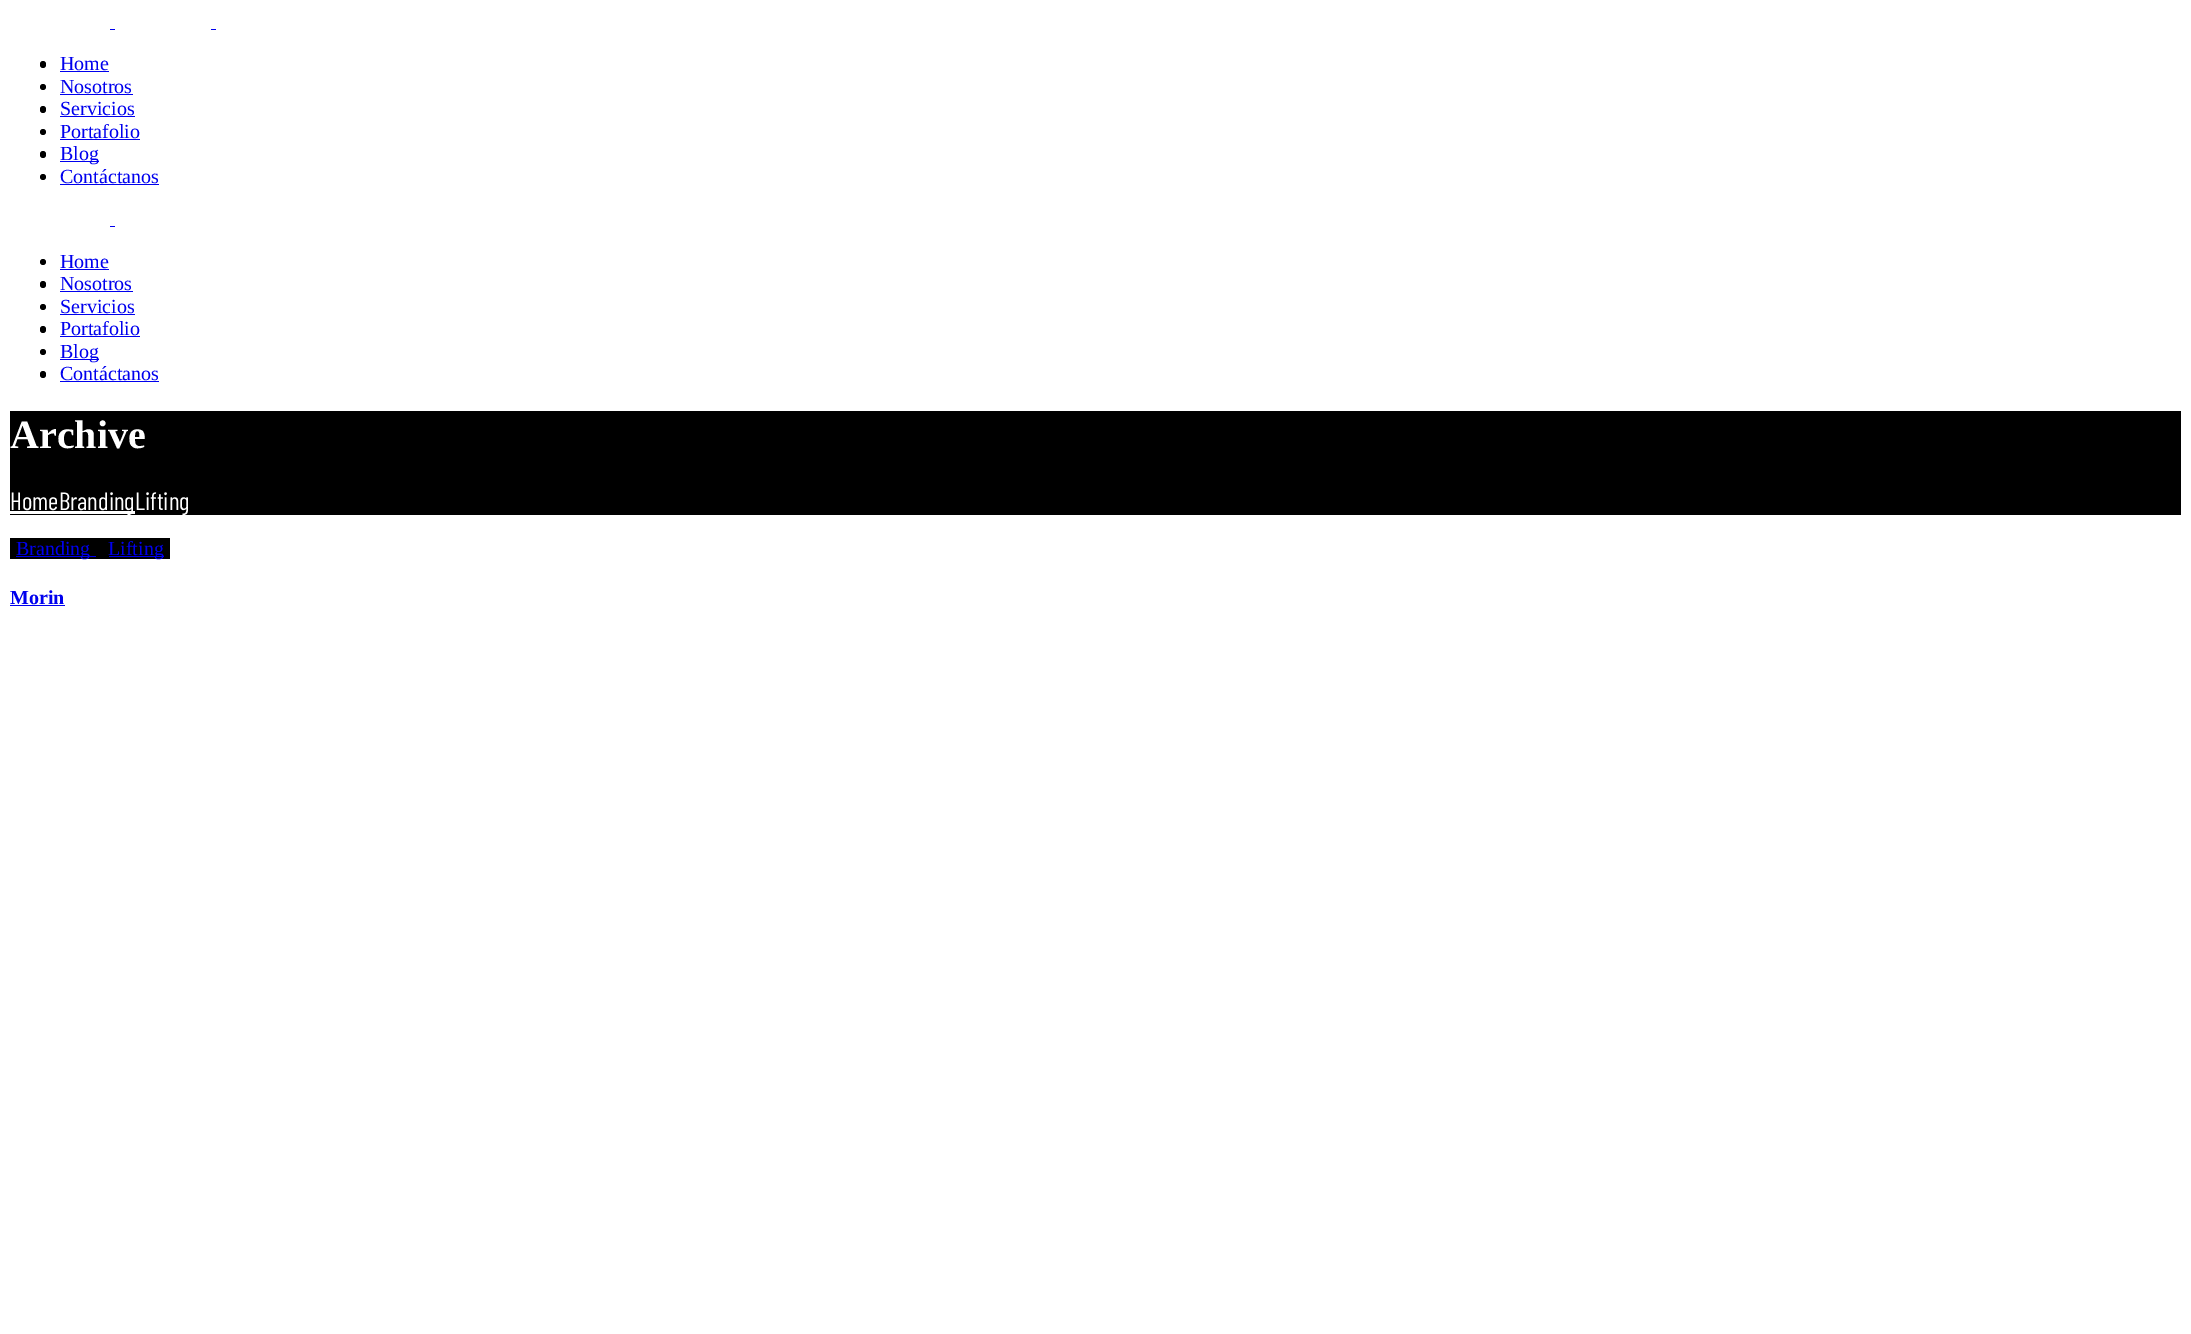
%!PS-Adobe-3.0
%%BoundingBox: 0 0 2191 1334
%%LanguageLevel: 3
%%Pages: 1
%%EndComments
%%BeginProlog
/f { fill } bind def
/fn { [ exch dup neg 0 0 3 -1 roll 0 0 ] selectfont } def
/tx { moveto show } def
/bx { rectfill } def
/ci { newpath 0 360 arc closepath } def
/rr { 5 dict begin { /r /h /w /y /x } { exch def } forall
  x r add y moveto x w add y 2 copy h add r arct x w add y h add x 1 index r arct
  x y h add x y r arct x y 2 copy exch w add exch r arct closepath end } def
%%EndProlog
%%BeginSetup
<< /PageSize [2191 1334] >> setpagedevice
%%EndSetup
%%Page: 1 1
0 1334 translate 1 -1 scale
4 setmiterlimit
1 setgray
0 0 2191 1334 bx
0 0 0.933 setrgbcolor
110 29 5 1 bx
211 29 5 1 bx
0 setgray
40 61 6 7 3 rr f
/LiberationSerif-Regular 20 fn
0 0 0.933 setrgbcolor
(Home) 60 70 tx
60 71 49 1 bx
0 setgray
43 87 3 ci f
0 0 0.933 setrgbcolor
(Nosotros) 60 93 tx
60 94 73 1 bx
0 setgray
40 106 6 7 3 rr f
0 0 0.933 setrgbcolor
(Servicios) 60 115 tx
60 116 75 1 bx
0 setgray
43 132 3 ci f
0 0 0.933 setrgbcolor
(Portafolio) 60 138 tx
60 139 80 1 bx
0 setgray
40 151 6 7 3 rr f
0 0 0.933 setrgbcolor
60 161 39 1 bx
(Blog) 60 160 tx
0 setgray
43 177 3 ci f
0 0 0.933 setrgbcolor
(Contáctanos) 60 183 tx
60 184 99 1 bx
110 226 5 1 bx
0 setgray
43 262 3 ci f
0 0 0.933 setrgbcolor
(Home) 60 268 tx
60 269 49 1 bx
0 setgray
40 281 6 7 3 rr f
0 0 0.933 setrgbcolor
(Nosotros) 60 290 tx
60 291 73 1 bx
0 setgray
43 307 3 ci f
0 0 0.933 setrgbcolor
(Servicios) 60 313 tx
60 314 75 1 bx
0 setgray
40 326 6 7 3 rr f
0 0 0.933 setrgbcolor
(Portafolio) 60 335 tx
60 336 80 1 bx
0 setgray
43 352 3 ci f
0 0 0.933 setrgbcolor
60 359 39 1 bx
(Blog) 60 358 tx
0 setgray
40 371 6 7 3 rr f
0 0 0.933 setrgbcolor
(Contáctanos) 60 380 tx
60 381 99 1 bx
0 setgray
10 411 2171 104 bx
/LiberationSerif-Bold 40 fn
1 setgray
(Archive) 10 448 tx
10 511 125 3 bx
/BarlowCondensed-Regular 25 fn
(HomeBrandingLifting) 10 510 tx
0 setgray
10 538 160 21 bx
0 0 0.933 setrgbcolor
16 556 80 1 bx
/LiberationSerif-Regular 20 fn
(Branding) 16 555 tx
109 556 55 1 bx
(Lifting) 108 555 tx
/LiberationSerif-Bold 20 fn
(Morin) 10 604 tx
10 605 55 1 bx
showpage
%%EOF
